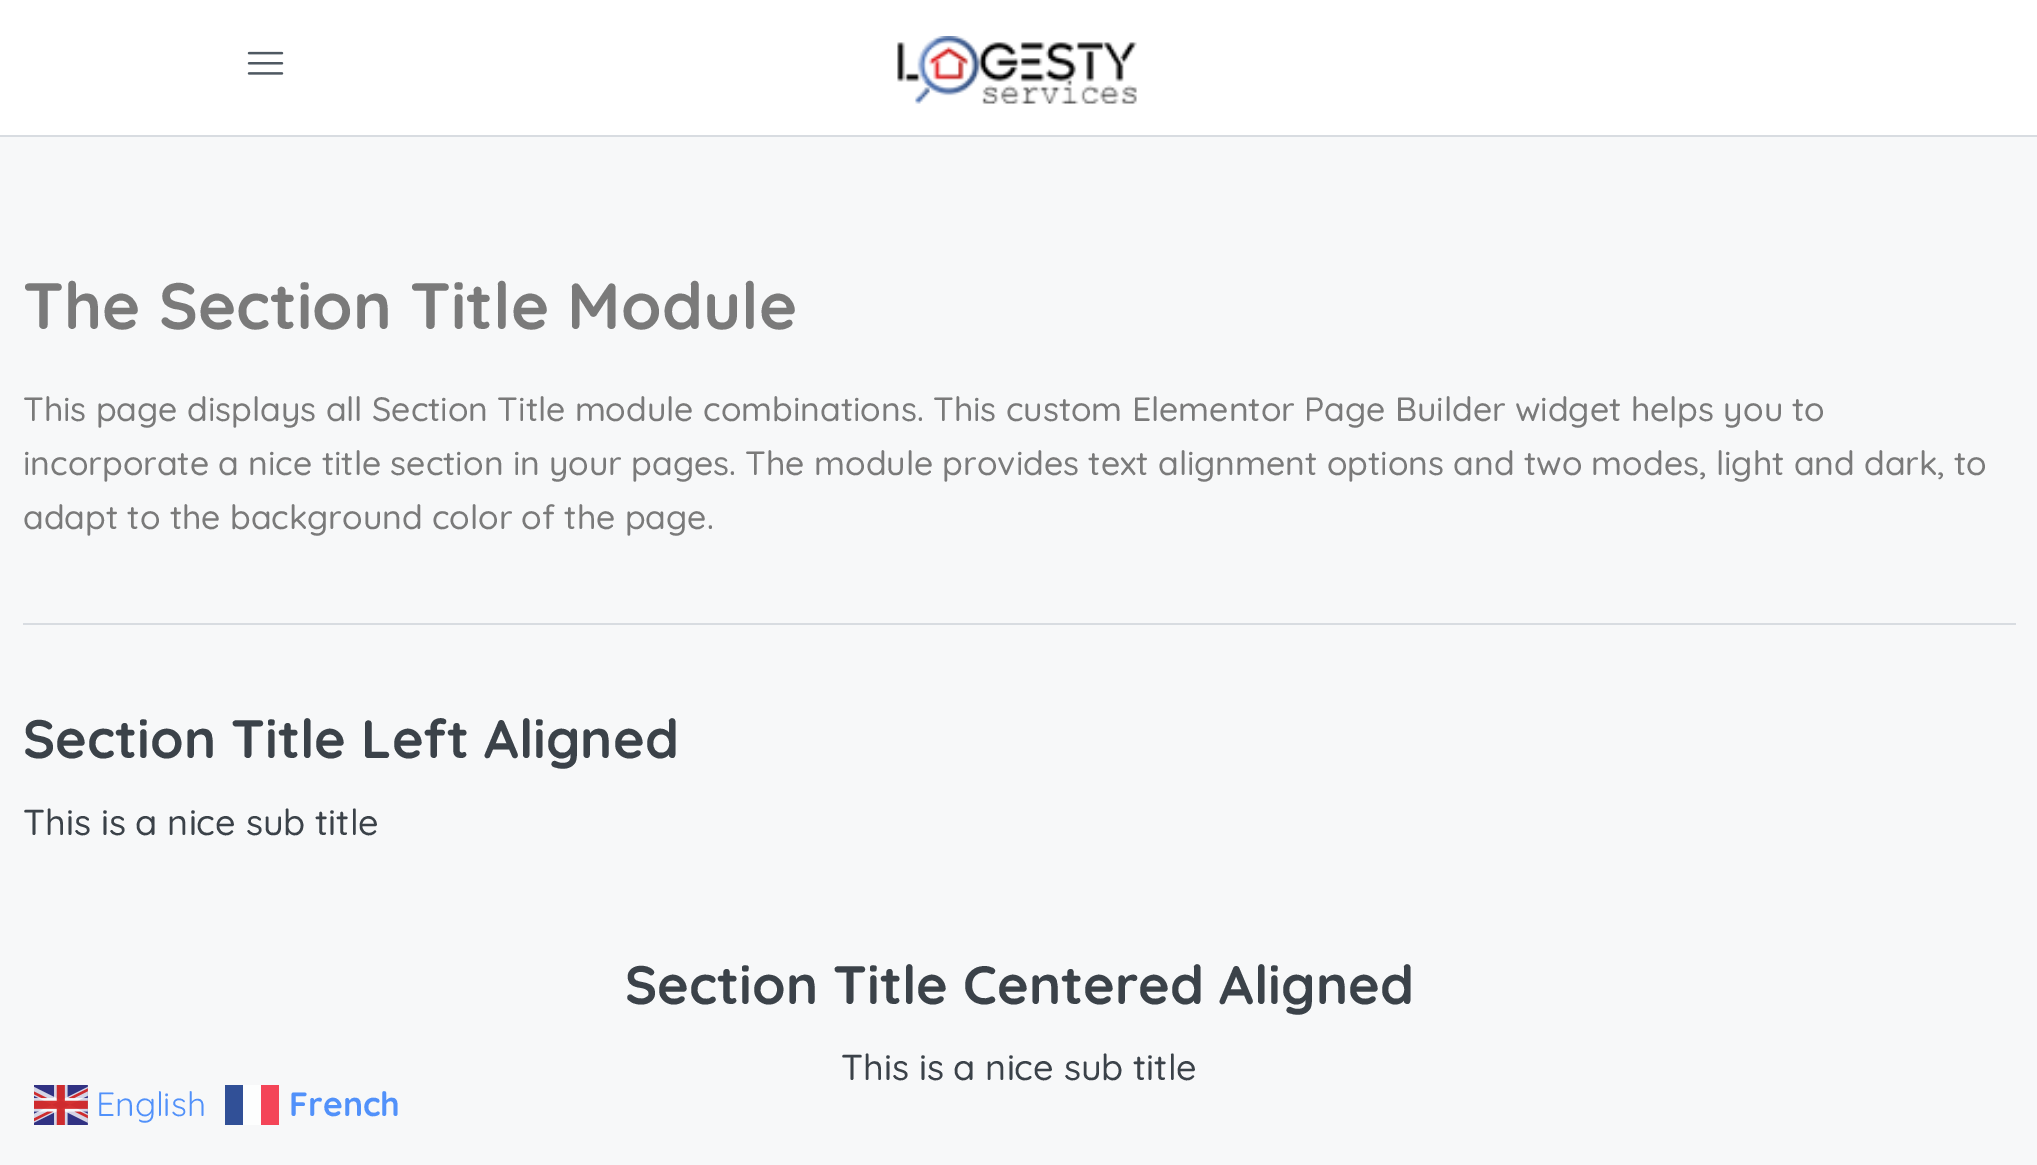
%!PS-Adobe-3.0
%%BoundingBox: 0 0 2037 1165
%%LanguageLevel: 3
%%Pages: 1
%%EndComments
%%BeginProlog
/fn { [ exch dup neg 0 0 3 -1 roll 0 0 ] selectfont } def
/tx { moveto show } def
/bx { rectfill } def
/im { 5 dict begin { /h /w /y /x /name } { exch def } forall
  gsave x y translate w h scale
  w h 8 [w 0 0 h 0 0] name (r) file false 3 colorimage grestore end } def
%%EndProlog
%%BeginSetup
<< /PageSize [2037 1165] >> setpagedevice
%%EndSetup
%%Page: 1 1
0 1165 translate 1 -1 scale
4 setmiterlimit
0.969 0.973 0.976 setrgbcolor
0 0 2037 1165 bx
1 setgray
0 0 2037 135 bx
0.847 0.863 0.882 setrgbcolor
0 135 2037 2 bx
(image0.raw) 247 51 37 24 im
(image1.raw) 897 36 240 68 im
/Quicksand-Bold 65.25 fn
0.478 setgray
(The Section Title Module) 23 329 tx
/Quicksand-Medium 33.75 fn
(This page displays all Section Title module combinations. This custom Elementor Page Builder widget helps you to) 23 421 tx
(incorporate a nice title section in your pages. The module provides text alignment options and two modes, light and dark, to) 23 475 tx
(adapt to the background color of the page.) 23 529 tx
0.847 0.863 0.882 setrgbcolor
23 623 1993 2 bx
/Quicksand-Bold 54 fn
0.231 0.259 0.286 setrgbcolor
(Section Title Left Aligned) 23 758 tx
/Quicksand-Medium 36 fn
(This is a nice sub title) 23 835 tx
/Quicksand-Bold 54 fn
(Section Title Centered Aligned) 625 1004 tx
/Quicksand-Medium 36 fn
(This is a nice sub title) 841 1080 tx
(image2.raw) 34 1085 54 40 im
/Quicksand-Regular 33.75 fn
0.318 0.569 0.98 setrgbcolor
(English) 96 1116 tx
/Quicksand-Bold 33.75 fn
(French) 289 1116 tx
0.992 0.996 0.996 setrgbcolor
243 1085 18 40 bx
0.192 0.314 0.592 setrgbcolor
225 1085 18 40 bx
0.957 0.271 0.345 setrgbcolor
261 1085 18 40 bx
showpage
%%EOF
